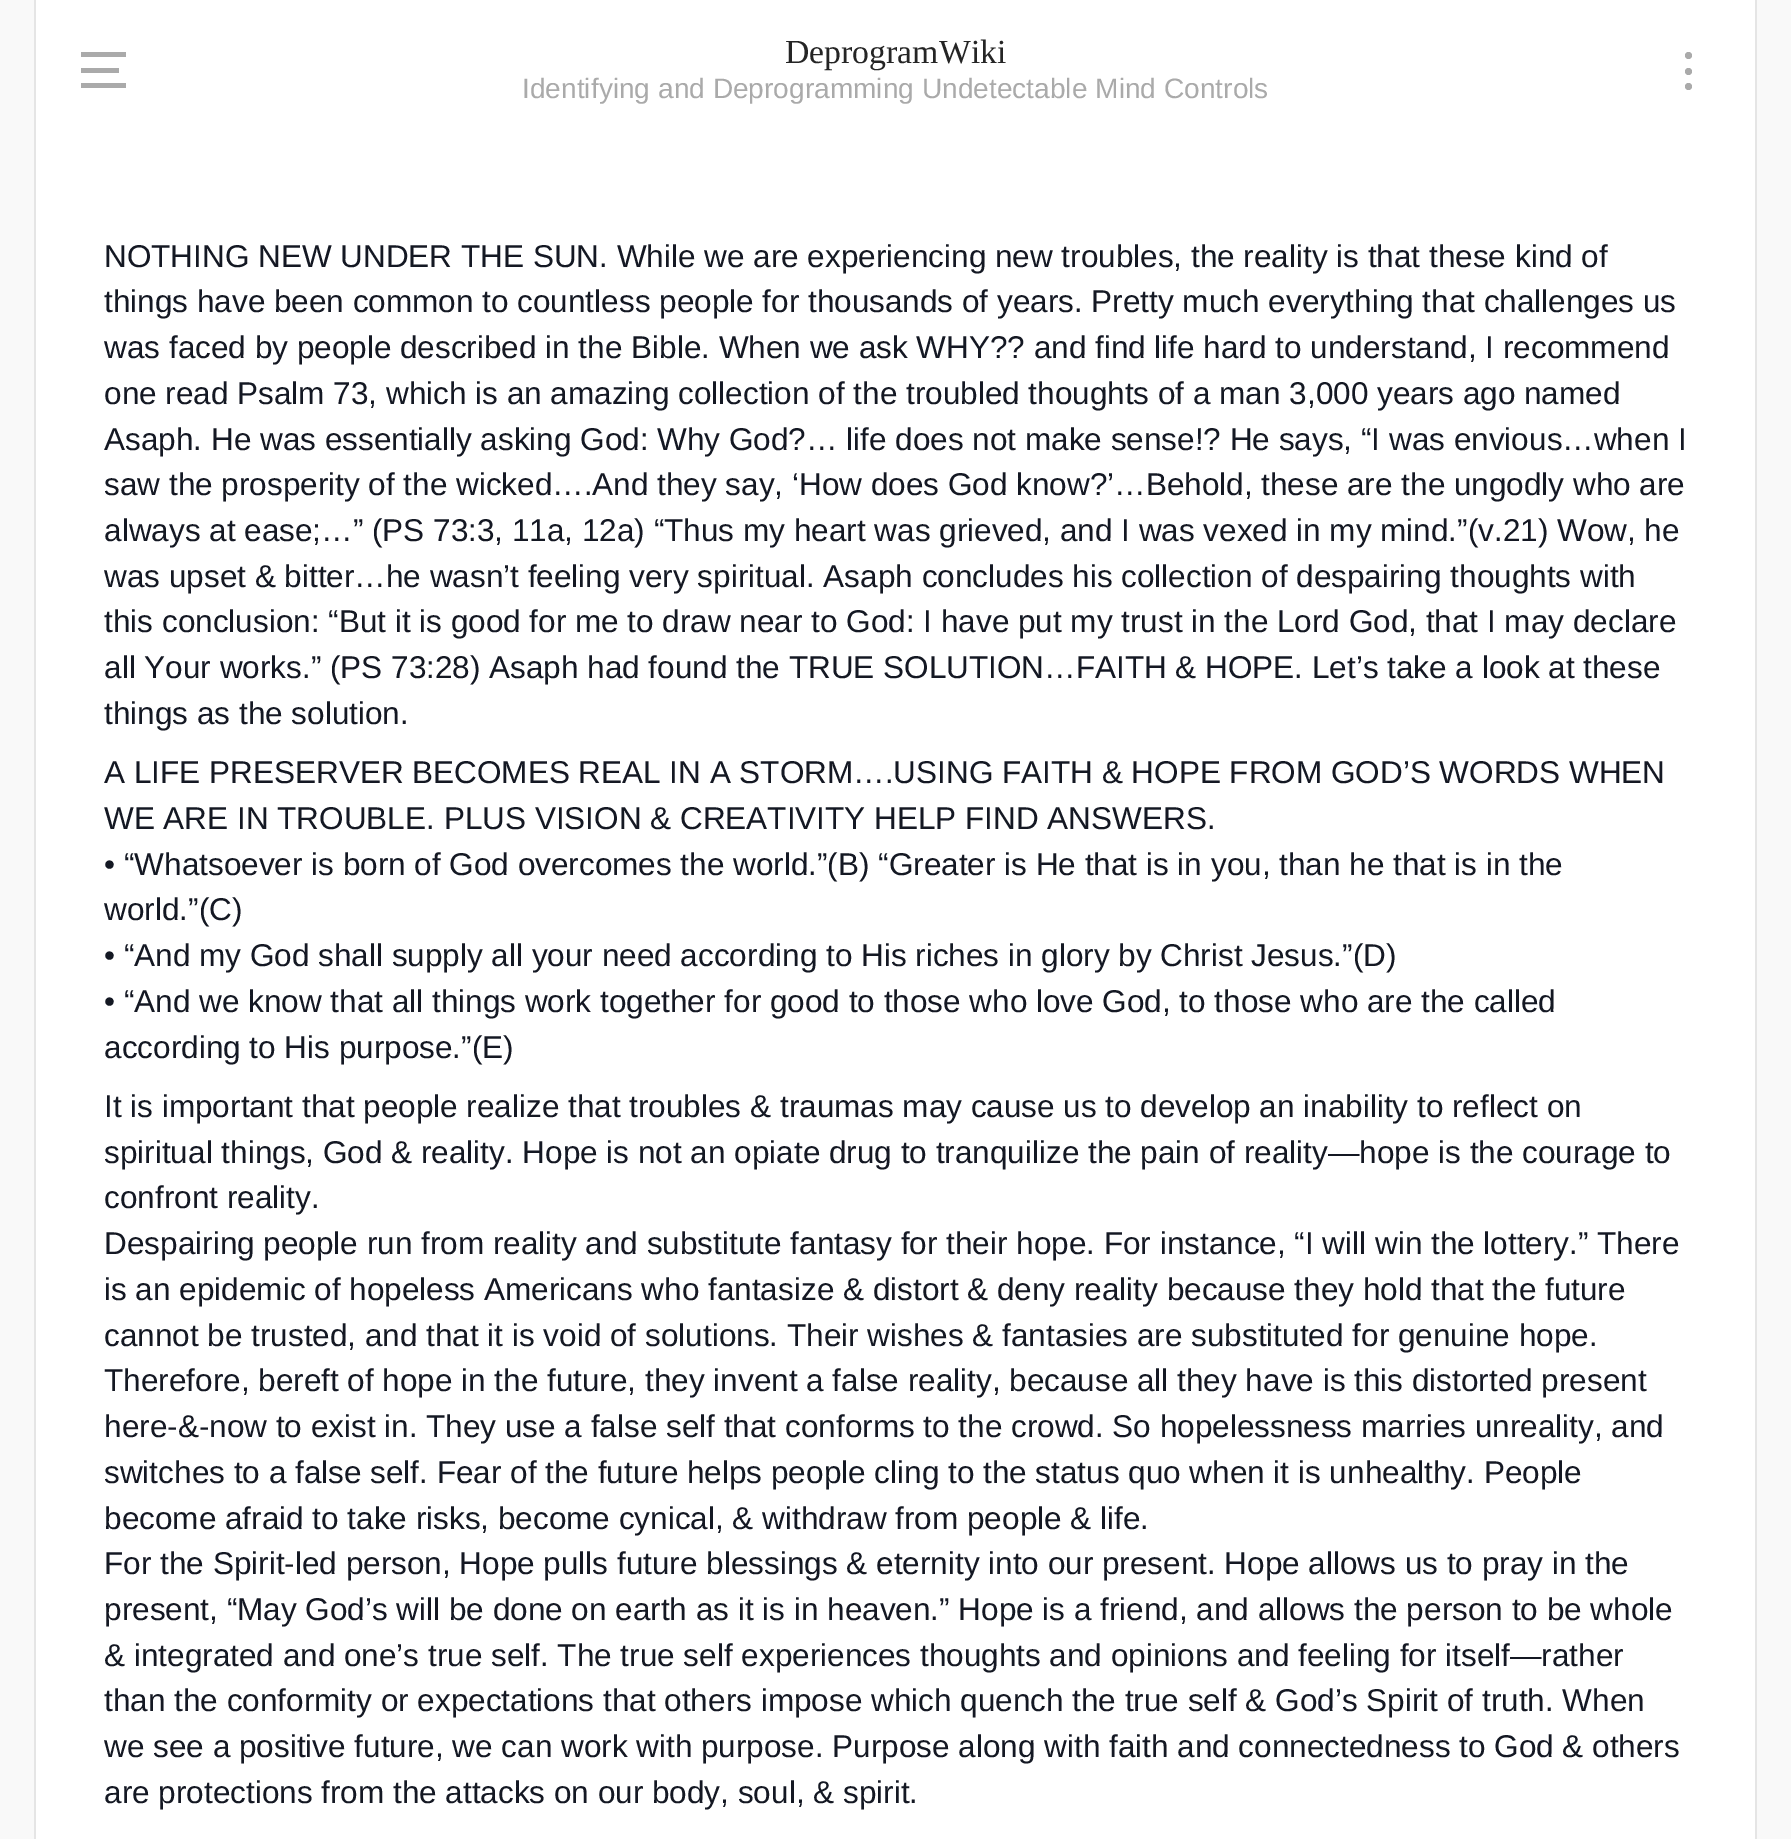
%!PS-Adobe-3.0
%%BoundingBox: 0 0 1791 1839
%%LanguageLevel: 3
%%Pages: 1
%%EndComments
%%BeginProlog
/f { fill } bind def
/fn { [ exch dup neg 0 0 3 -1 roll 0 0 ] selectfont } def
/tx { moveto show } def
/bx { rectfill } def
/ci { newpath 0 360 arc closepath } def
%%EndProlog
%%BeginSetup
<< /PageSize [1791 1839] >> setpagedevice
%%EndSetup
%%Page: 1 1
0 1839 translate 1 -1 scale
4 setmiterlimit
0.976 setgray
0 0 1791 1839 bx
1 setgray
36 0 1719 1839 bx
/LiberationSerif-Regular 33.75 fn
0.145 setgray
(DeprogramWiki) 785 63 tx
/LiberationSans-Regular 28.1 fn
0.667 setgray
(Identifying and Deprogramming Undetectable Mind Controls) 522 98 tx
81 52 45 5 bx
81 68 38 5 bx
81 83 45 5 bx
1688.5 55.5 3.5 ci f
1688.5 71.5 3.5 ci f
1688.5 86.5 3.5 ci f
0.898 setgray
1755 0 2 1839 bx
34 0 2 1839 bx
/LiberationSans-Regular 31.5 fn
0.078 0.094 0.137 setrgbcolor
(NOTHING NEW UNDER THE SUN. While we are experiencing new troubles, the reality is that these kind of) 104 267 tx
(things have been common to countless people for thousands of years. Pretty much everything that challenges us) 104 312 tx
(was faced by people described in the Bible. When we ask WHY?? and find life hard to understand, I recommend) 104 358 tx
(one read Psalm 73, which is an amazing collection of the troubled thoughts of a man 3,000 years ago named) 104 404 tx
(Asaph. He was essentially asking God: Why God?… life does not make sense!? He says, “I was envious…when I) 104 450 tx
(saw the prosperity of the wicked….And they say, ‘How does God know?’…Behold, these are the ungodly who are) 104 495 tx
(always at ease;…” \(PS 73:3, 11a, 12a\) “Thus my heart was grieved, and I was vexed in my mind.”\(v.21\) Wow, he) 104 541 tx
(was upset & bitter…he wasn’t feeling very spiritual. Asaph concludes his collection of despairing thoughts with) 104 587 tx
(this conclusion: “But it is good for me to draw near to God: I have put my trust in the Lord God, that I may declare) 104 632 tx
(all Your works.” \(PS 73:28\) Asaph had found the TRUE SOLUTION…FAITH & HOPE. Let’s take a look at these) 104 678 tx
(things as the solution.) 104 724 tx
(A LIFE PRESERVER BECOMES REAL IN A STORM….USING FAITH & HOPE FROM GOD’S WORDS WHEN) 104 783 tx
(WE ARE IN TROUBLE. PLUS VISION & CREATIVITY HELP FIND ANSWERS.) 104 829 tx
(• “Whatsoever is born of God overcomes the world.”\(B\) “Greater is He that is in you, than he that is in the) 104 875 tx
(world.”\(C\)) 104 920 tx
(• “And my God shall supply all your need according to His riches in glory by Christ Jesus.”\(D\)) 104 966 tx
(• “And we know that all things work together for good to those who love God, to those who are the called) 104 1012 tx
(according to His purpose.”\(E\)) 104 1058 tx
(It is important that people realize that troubles & traumas may cause us to develop an inability to reflect on) 104 1117 tx
(spiritual things, God & reality. Hope is not an opiate drug to tranquilize the pain of reality—hope is the courage to) 104 1163 tx
(confront reality.) 104 1208 tx
(Despairing people run from reality and substitute fantasy for their hope. For instance, “I will win the lottery.” There) 104 1254 tx
(is an epidemic of hopeless Americans who fantasize & distort & deny reality because they hold that the future) 104 1300 tx
(cannot be trusted, and that it is void of solutions. Their wishes & fantasies are substituted for genuine hope.) 104 1346 tx
(Therefore, bereft of hope in the future, they invent a false reality, because all they have is this distorted present) 104 1391 tx
(here-&-now to exist in. They use a false self that conforms to the crowd. So hopelessness marries unreality, and) 104 1437 tx
(switches to a false self. Fear of the future helps people cling to the status quo when it is unhealthy. People) 104 1483 tx
(become afraid to take risks, become cynical, & withdraw from people & life.) 104 1529 tx
(For the Spirit-led person, Hope pulls future blessings & eternity into our present. Hope allows us to pray in the) 104 1574 tx
(present, “May God’s will be done on earth as it is in heaven.” Hope is a friend, and allows the person to be whole) 104 1620 tx
(& integrated and one’s true self. The true self experiences thoughts and opinions and feeling for itself—rather) 104 1666 tx
(than the conformity or expectations that others impose which quench the true self & God’s Spirit of truth. When) 104 1711 tx
(we see a positive future, we can work with purpose. Purpose along with faith and connectedness to God & others) 104 1757 tx
(are protections from the attacks on our body, soul, & spirit.) 104 1803 tx
showpage
%%EOF
